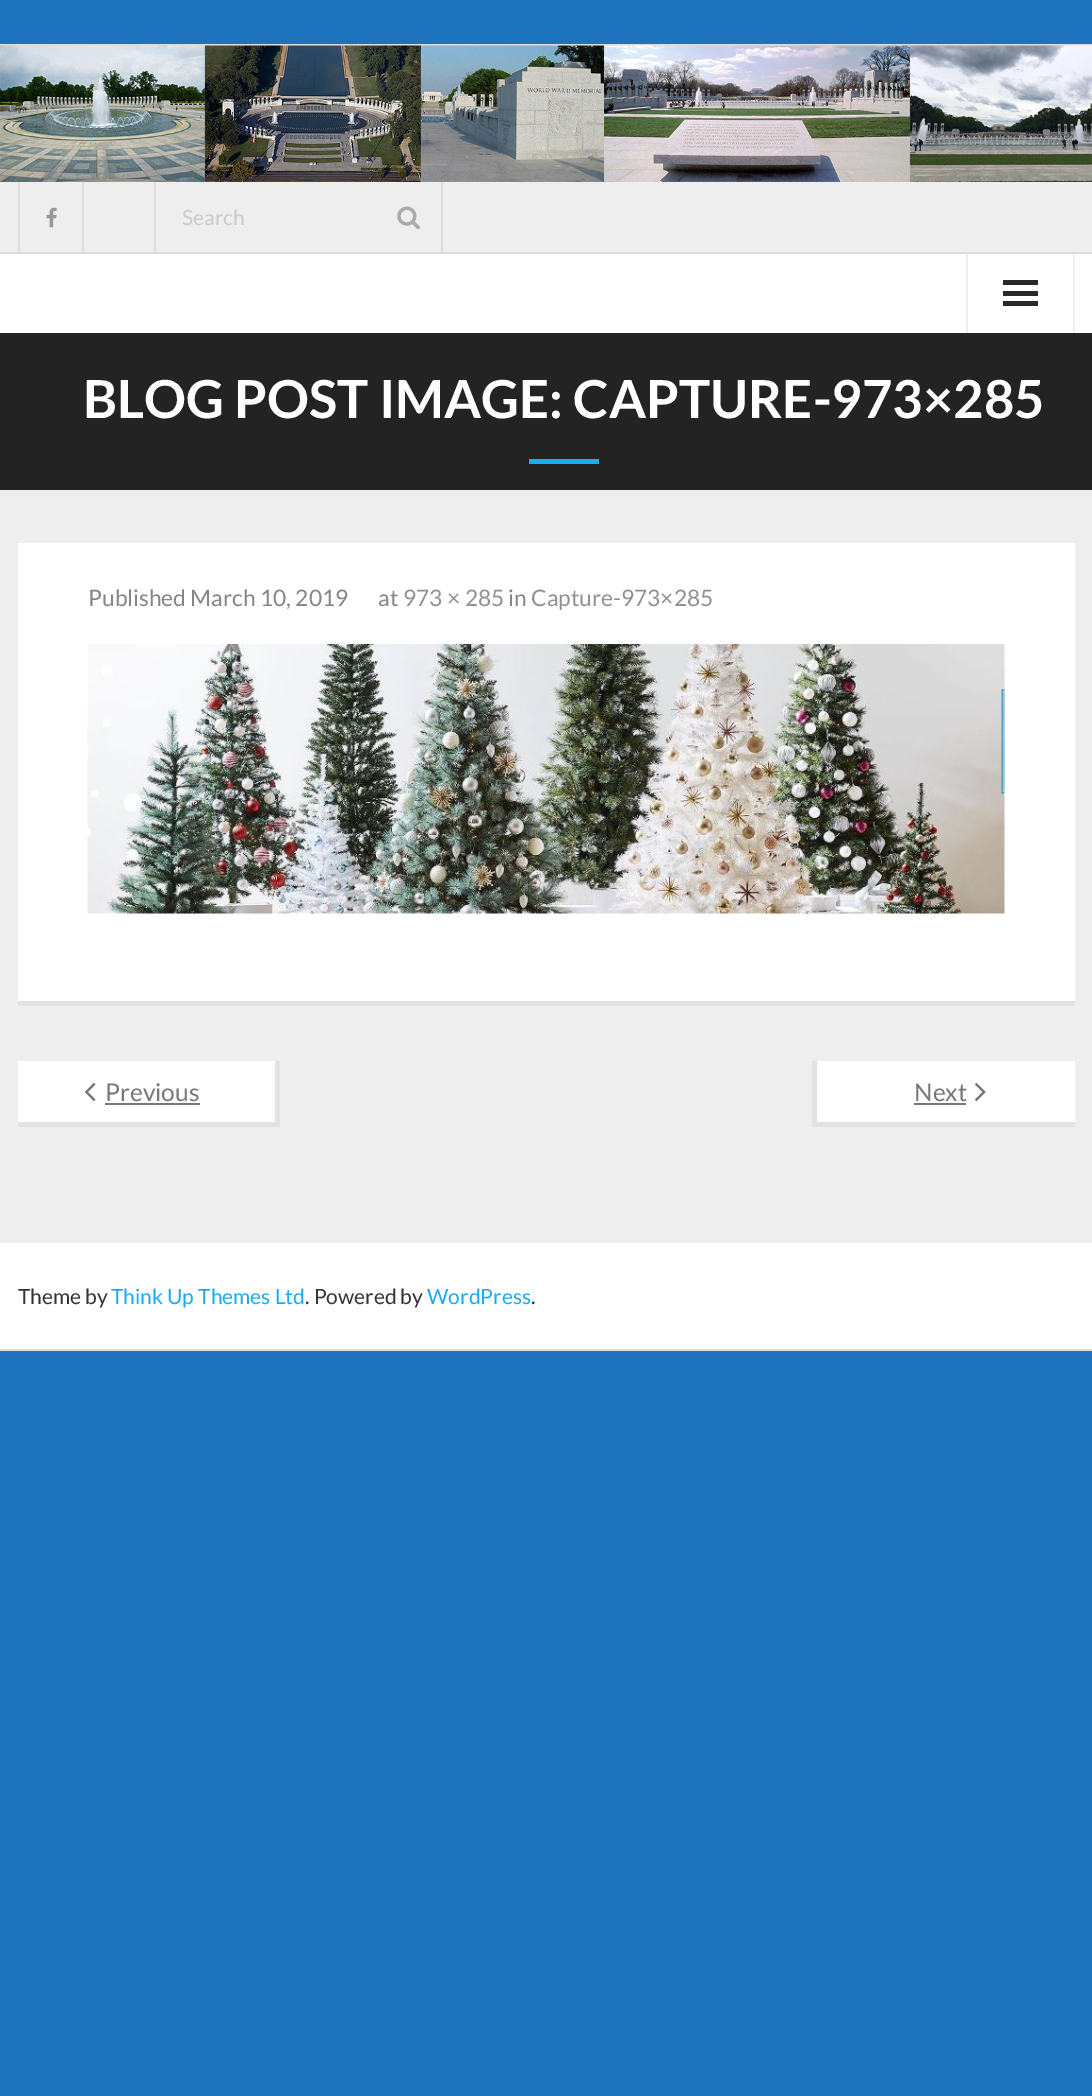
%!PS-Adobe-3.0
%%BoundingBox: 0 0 1092 2096
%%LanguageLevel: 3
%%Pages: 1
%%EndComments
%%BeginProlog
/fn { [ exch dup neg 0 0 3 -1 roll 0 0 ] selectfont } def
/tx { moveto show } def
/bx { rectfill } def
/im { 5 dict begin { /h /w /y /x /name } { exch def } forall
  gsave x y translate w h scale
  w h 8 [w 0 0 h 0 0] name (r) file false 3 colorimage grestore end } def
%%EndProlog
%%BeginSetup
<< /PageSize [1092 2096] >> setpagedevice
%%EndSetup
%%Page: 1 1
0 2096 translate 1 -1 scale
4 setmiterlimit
0.118 0.451 0.745 setrgbcolor
0 0 1092 2096 bx
0.933 setgray
0 182 1092 1061 bx
0.867 setgray
0 44 1092 2 bx
0 1349 1092 2 bx
(image0.raw) 0 45 1092 137 im
0 252 1092 2 bx
82 182 2 70 bx
18 182 2 70 bx
(image1.raw) 46 207 11 21 im
441 182 2 70 bx
154 182 2 70 bx
/Lato-Regular 21 fn
0.792 setgray
(Search) 182 225 tx
(image2.raw) 397 206 23 24 im
1 setgray
0 254 1092 79 bx
0.933 setgray
1073 254 2 79 bx
966 254 2 79 bx
0.161 setgray
1003 280 35 5 bx
1003 291 35 5 bx
1003 301 35 5 bx
0.137 setgray
0 333 1092 157 bx
/Lato-Bold 52.5 fn
1 setgray
(BLOG POST IMAGE: CAPTURE-973×285) 83 418 tx
0.118 0.667 0.945 setrgbcolor
529 459 70 5 bx
1 setgray
18 543 1057 458 bx
0.886 setgray
18 1001 1057 5 bx
/Lato-Regular 22.75 fn
0.522 setgray
(Published March 10, 2019) 88 606 tx
(at) 378 606 tx
0.569 setgray
(973 × 285) 403 606 tx
0.522 setgray
(in) 508 606 tx
0.569 setgray
(Capture-973×285) 531 606 tx
(image3.raw) 87 644 918 270 im
1 setgray
18 1061 257 61 bx
0.886 setgray
275 1061 5 66 bx
18 1122 262 5 bx
(image4.raw) 84 1083 12 18 im
/Lato-Regular 24.5 fn
0.467 setgray
(Previous) 105 1101 tx
105 1103 95 2 bx
1 setgray
817 1061 258 61 bx
0.886 setgray
812 1122 263 5 bx
812 1061 5 66 bx
0.467 setgray
(Next) 914 1101 tx
914 1103 52 2 bx
(image5.raw) 975 1083 11 18 im
1 setgray
0 1243 1092 106 bx
/Lato-Regular 21 fn
0.2 setgray
(Theme by) 18 1304 tx
0.118 0.667 0.945 setrgbcolor
(Think Up Themes Ltd) 111 1304 tx
0.2 setgray
(. Powered by) 305 1304 tx
0.118 0.667 0.945 setrgbcolor
(WordPress) 427 1304 tx
0.2 setgray
(.) 531 1304 tx
showpage
%%EOF
